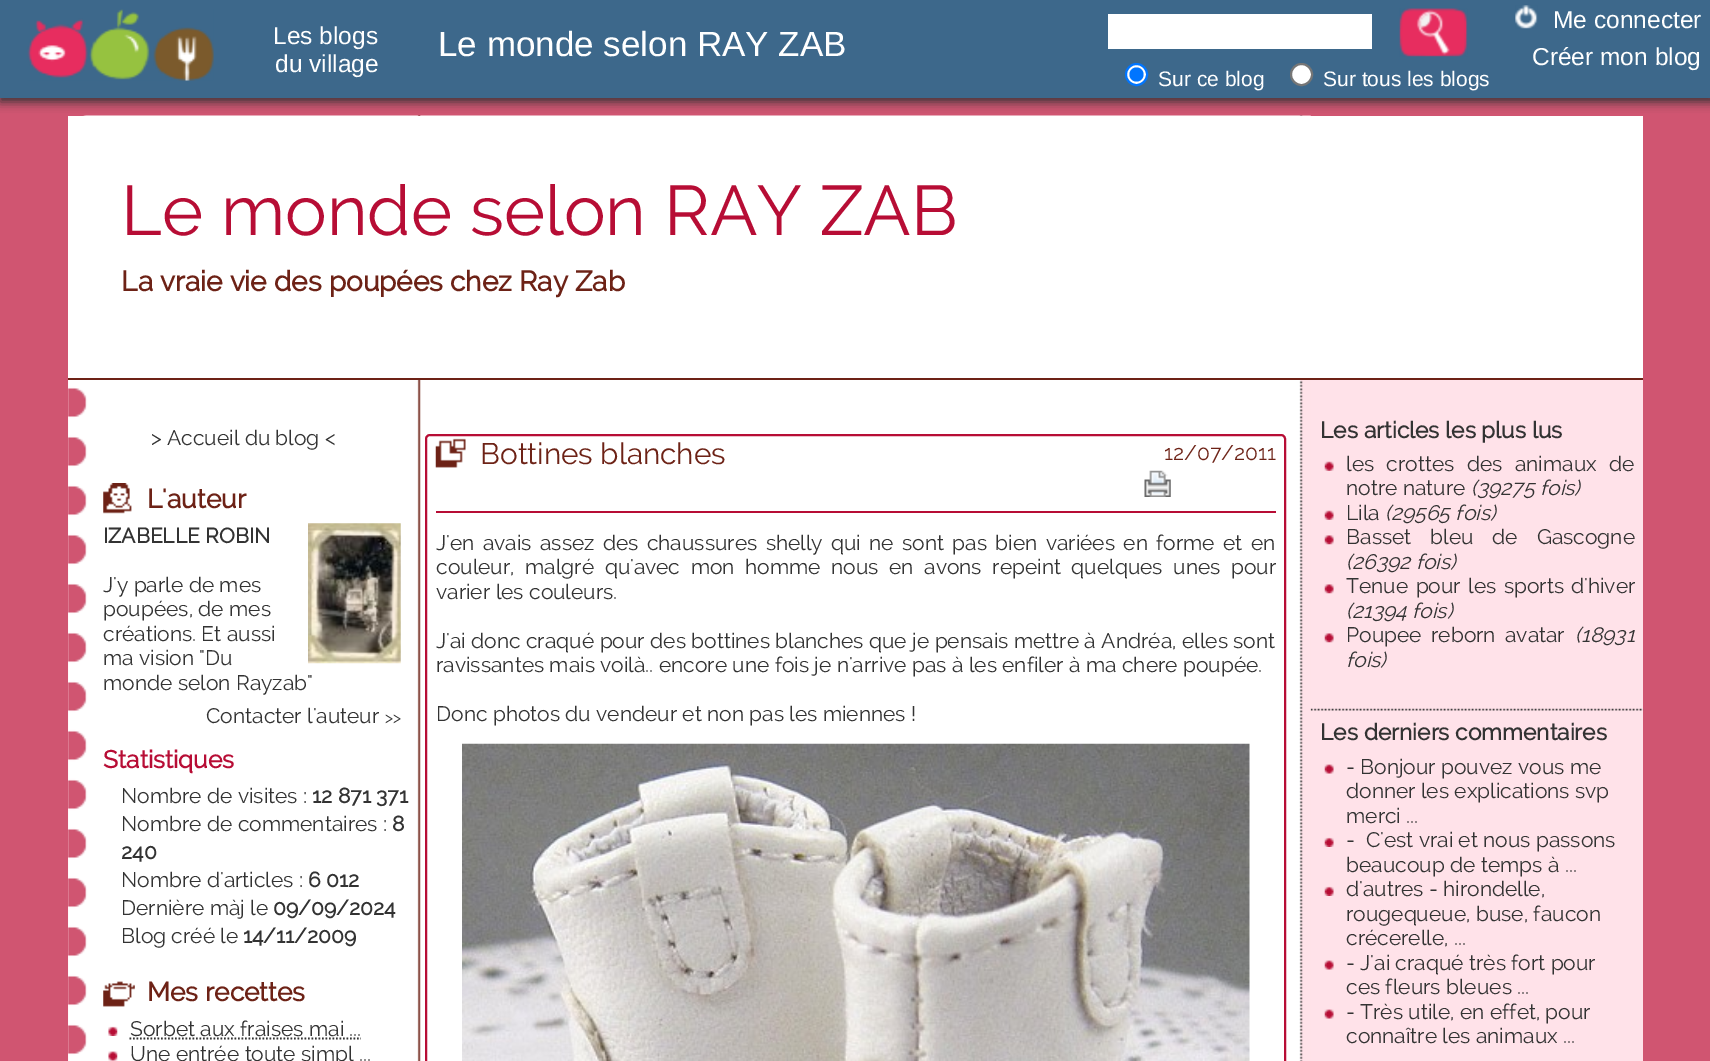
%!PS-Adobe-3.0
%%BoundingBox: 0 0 1710 1061
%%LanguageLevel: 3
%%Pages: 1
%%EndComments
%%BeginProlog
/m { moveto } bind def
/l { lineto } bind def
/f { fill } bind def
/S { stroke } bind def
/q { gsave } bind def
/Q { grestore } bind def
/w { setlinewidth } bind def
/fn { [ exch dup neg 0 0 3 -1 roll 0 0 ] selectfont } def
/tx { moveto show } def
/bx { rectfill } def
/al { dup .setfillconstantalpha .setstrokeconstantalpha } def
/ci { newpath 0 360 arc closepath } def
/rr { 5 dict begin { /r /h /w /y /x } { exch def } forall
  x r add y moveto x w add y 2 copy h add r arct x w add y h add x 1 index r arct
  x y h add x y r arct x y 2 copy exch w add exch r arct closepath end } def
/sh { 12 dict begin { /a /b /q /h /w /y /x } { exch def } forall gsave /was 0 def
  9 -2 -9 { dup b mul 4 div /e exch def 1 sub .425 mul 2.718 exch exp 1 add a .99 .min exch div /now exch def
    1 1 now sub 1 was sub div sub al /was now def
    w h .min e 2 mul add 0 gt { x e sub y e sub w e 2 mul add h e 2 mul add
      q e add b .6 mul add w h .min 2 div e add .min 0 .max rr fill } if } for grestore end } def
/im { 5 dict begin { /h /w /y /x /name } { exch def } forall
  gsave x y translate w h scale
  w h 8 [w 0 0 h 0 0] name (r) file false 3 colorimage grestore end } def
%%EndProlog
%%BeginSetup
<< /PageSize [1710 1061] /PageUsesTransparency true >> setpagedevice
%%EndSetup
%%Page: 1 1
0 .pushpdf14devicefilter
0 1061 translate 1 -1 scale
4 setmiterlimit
0.816 0.333 0.443 setrgbcolor
0 0 1710 1061 bx
1 0.886 0.914 setrgbcolor
68 380 1575 681 bx
(image3.raw) 68 115 1243 946 im
1 setgray
68 116 1575 262 bx
0.2 setgray
0 4 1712 98 0 5 1 sh
0.239 0.408 0.545 setrgbcolor
0 0 1710 98 bx
(image0.raw) 27 9 187 72 im
/LiberationSans-Regular 24.5 fn
1 setgray
(Les blogs) 273 44 tx
(du village) 275 72 tx
/LiberationSans-Regular 35 fn
(Le monde selon RAY ZAB) 438 56 tx
(image1.raw) 1515 5 23 24 im
/LiberationSans-Regular 24.5 fn
(Me connecter) 1553 28 tx
(Créer mon blog) 1532 65 tx
1108 14 264 35 bx
(image2.raw) 1399 8 69 49 im
1136.5 74.5 10.5 ci q f Q
0 0.459 1 setrgbcolor
2 w
S
1136.5 74.5 7 ci f
/LiberationSans-Regular 21 fn
1 setgray
(Sur ce blog) 1158 86 tx
1301.5 74.5 10.5 ci q f Q
0.463 setgray
S
1 setgray
(Sur tous les blogs) 1323 86 tx
0.427 0.133 0.086 setrgbcolor
68 378 1575 2 bx
/Raleway-Regular 70 fn
0.718 0.051 0.208 setrgbcolor
(Le monde selon RAY ZAB) 121 235 tx
/Raleway-Bold 28 fn
0.427 0.133 0.086 setrgbcolor
(La vraie vie des poupées chez Ray Zab) 121 291 tx
/Raleway-Regular 21 fn
0.2 setgray
(> Accueil du blog <) 151 445 tx
(image4.raw) 103 483 29 31 im
/Raleway-Bold 26.25 fn
0.427 0.133 0.086 setrgbcolor
(L'auteur) 147 508 tx
/Raleway-Bold 21 fn
0.2 setgray
(IZABELLE ROBIN) 103 543 tx
/Raleway-Regular 21 fn
(J'y parle de mes) 103 592 tx
(poupées, de mes) 103 616 tx
(créations. Et aussi) 103 641 tx
(ma vision "Du) 103 665 tx
(monde selon Rayzab") 103 690 tx
(image5.raw) 308 523 93 141 im
(Contacter l'auteur) 206 723 tx
/Raleway-Regular 16 fn
(>>) 385 723 tx
/Raleway-Bold 24.5 fn
0.718 0.051 0.208 setrgbcolor
(Statistiques) 103 768 tx
/Raleway-Regular 21 fn
0.2 setgray
(Nombre de visites :) 121 803 tx
/Raleway-Bold 21 fn
(12 871 371) 312 803 tx
/Raleway-Regular 21 fn
(Nombre de commentaires :) 121 831 tx
/Raleway-Bold 21 fn
(8) 392 831 tx
(240) 121 859 tx
/Raleway-Regular 21 fn
(Nombre d'articles :) 121 887 tx
/Raleway-Bold 21 fn
(6 012) 308 887 tx
/Raleway-Regular 21 fn
(Dernière màj le) 121 915 tx
/Raleway-Bold 21 fn
(09/09/2024) 273 915 tx
/Raleway-Regular 21 fn
(Blog créé le) 121 943 tx
/Raleway-Bold 21 fn
(14/11/2009) 243 943 tx
(image6.raw) 103 981 32 26 im
/Raleway-Bold 26.25 fn
0.427 0.133 0.086 setrgbcolor
(Mes recettes) 147 1001 tx
(image7.raw) 108 1026 10 10 im
/Raleway-Regular 21 fn
0.2 setgray
(Sorbet aux fraises mai ...) 130 1036 tx
1.8 w
[1.75 1.75] 0 setdash
129.5 1038.5 m 361 1038.5 l S
(image8.raw) 108 1051 10 10 im
(Une entrée toute simpl ...) 130 1061 tx
0.718 0.051 0.208 setrgbcolor
2 w
[] 0 setdash
426 435 859 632 4 rr S
(image9.raw) 435 438 31 30 im
436 511 840 2 bx
/Raleway-Regular 29.75 fn
0.427 0.133 0.086 setrgbcolor
(Bottines blanches) 480 464 tx
/Raleway-Regular 21 fn
(12/07/2011) 1164 460 tx
(image10.raw) 1144 470 27 27 im
0.2 setgray
436 550 m 3 0 32 (J'en avais assez des chaussures shelly qui ne sont pas bien variées en forme et en) widthshow
436 574 m 5.25 0 32 (couleur, malgré qu'avec mon homme nous en avons repeint quelques unes pour) widthshow
(varier les couleurs.) 436 599 tx
436 648 m 0.1 0 32 (J'ai donc craqué pour des bottines blanches que je pensais mettre à Andréa, elles sont) widthshow
(ravissantes mais voilà.. encore une fois je n'arrive pas à les enfiler à ma chere poupée.) 436 672 tx
(Donc photos du vendeur et non pas les miennes !) 436 721 tx
(image11.raw) 462 743 788 318 im
(image12.raw) 1310 708 334 3 im
/Raleway-Bold 22.75 fn
(Les articles les plus lus) 1320 438 tx
(image13.raw) 1324 461 10 10 im
/Raleway-Regular 21 fn
1346 471 m 7 0 32 (les crottes des animaux de) widthshow
(notre nature) 1346 495 tx
/Raleway-Italic 21 fn
(\(39275 fois\)) 1471 495 tx
(image13.raw) 1324 510 10 10 im
/Raleway-Regular 21 fn
(Lila) 1346 520 tx
/Raleway-Italic 21 fn
(\(29565 fois\)) 1385 520 tx
(image14.raw) 1324 535 10 10 im
/Raleway-Regular 21 fn
1346 544 m 13.5 0 32 (Basset bleu de Gascogne) widthshow
/Raleway-Italic 21 fn
(\(26392 fois\)) 1346 569 tx
(image14.raw) 1324 584 10 10 im
/Raleway-Regular 21 fn
1346 593 m 2 0 32 (Tenue pour les sports d'hiver) widthshow
/Raleway-Italic 21 fn
(\(21394 fois\)) 1346 618 tx
(image14.raw) 1324 633 10 10 im
/Raleway-Regular 21 fn
1346 642 m 4 0 32 (Poupee reborn avatar) widthshow
/Raleway-Italic 21 fn
(\(18931) 1575 642 tx
(fois\)) 1346 667 tx
/Raleway-Bold 22.75 fn
(Les derniers commentaires) 1320 740 tx
(image15.raw) 1324 764 10 10 im
/Raleway-Regular 21 fn
(- Bonjour pouvez vous me) 1346 774 tx
(donner les explications svp) 1346 798 tx
(merci ...) 1346 823 tx
(image16.raw) 1324 837 10 10 im
(-  C'est vrai et nous passons) 1346 847 tx
(beaucoup de temps à ...) 1346 872 tx
(image16.raw) 1324 886 10 10 im
(d'autres - hirondelle,) 1346 896 tx
(rougequeue, buse, faucon) 1346 921 tx
(crécerelle, ...) 1346 945 tx
(image15.raw) 1324 960 10 10 im
(- J'ai craqué très fort pour) 1346 970 tx
(ces fleurs bleues ...) 1346 994 tx
(image15.raw) 1324 1009 10 10 im
(- Très utile, en effet, pour) 1346 1019 tx
(connaître les animaux ...) 1346 1043 tx
.poppdf14devicefilter showpage
%%EOF
